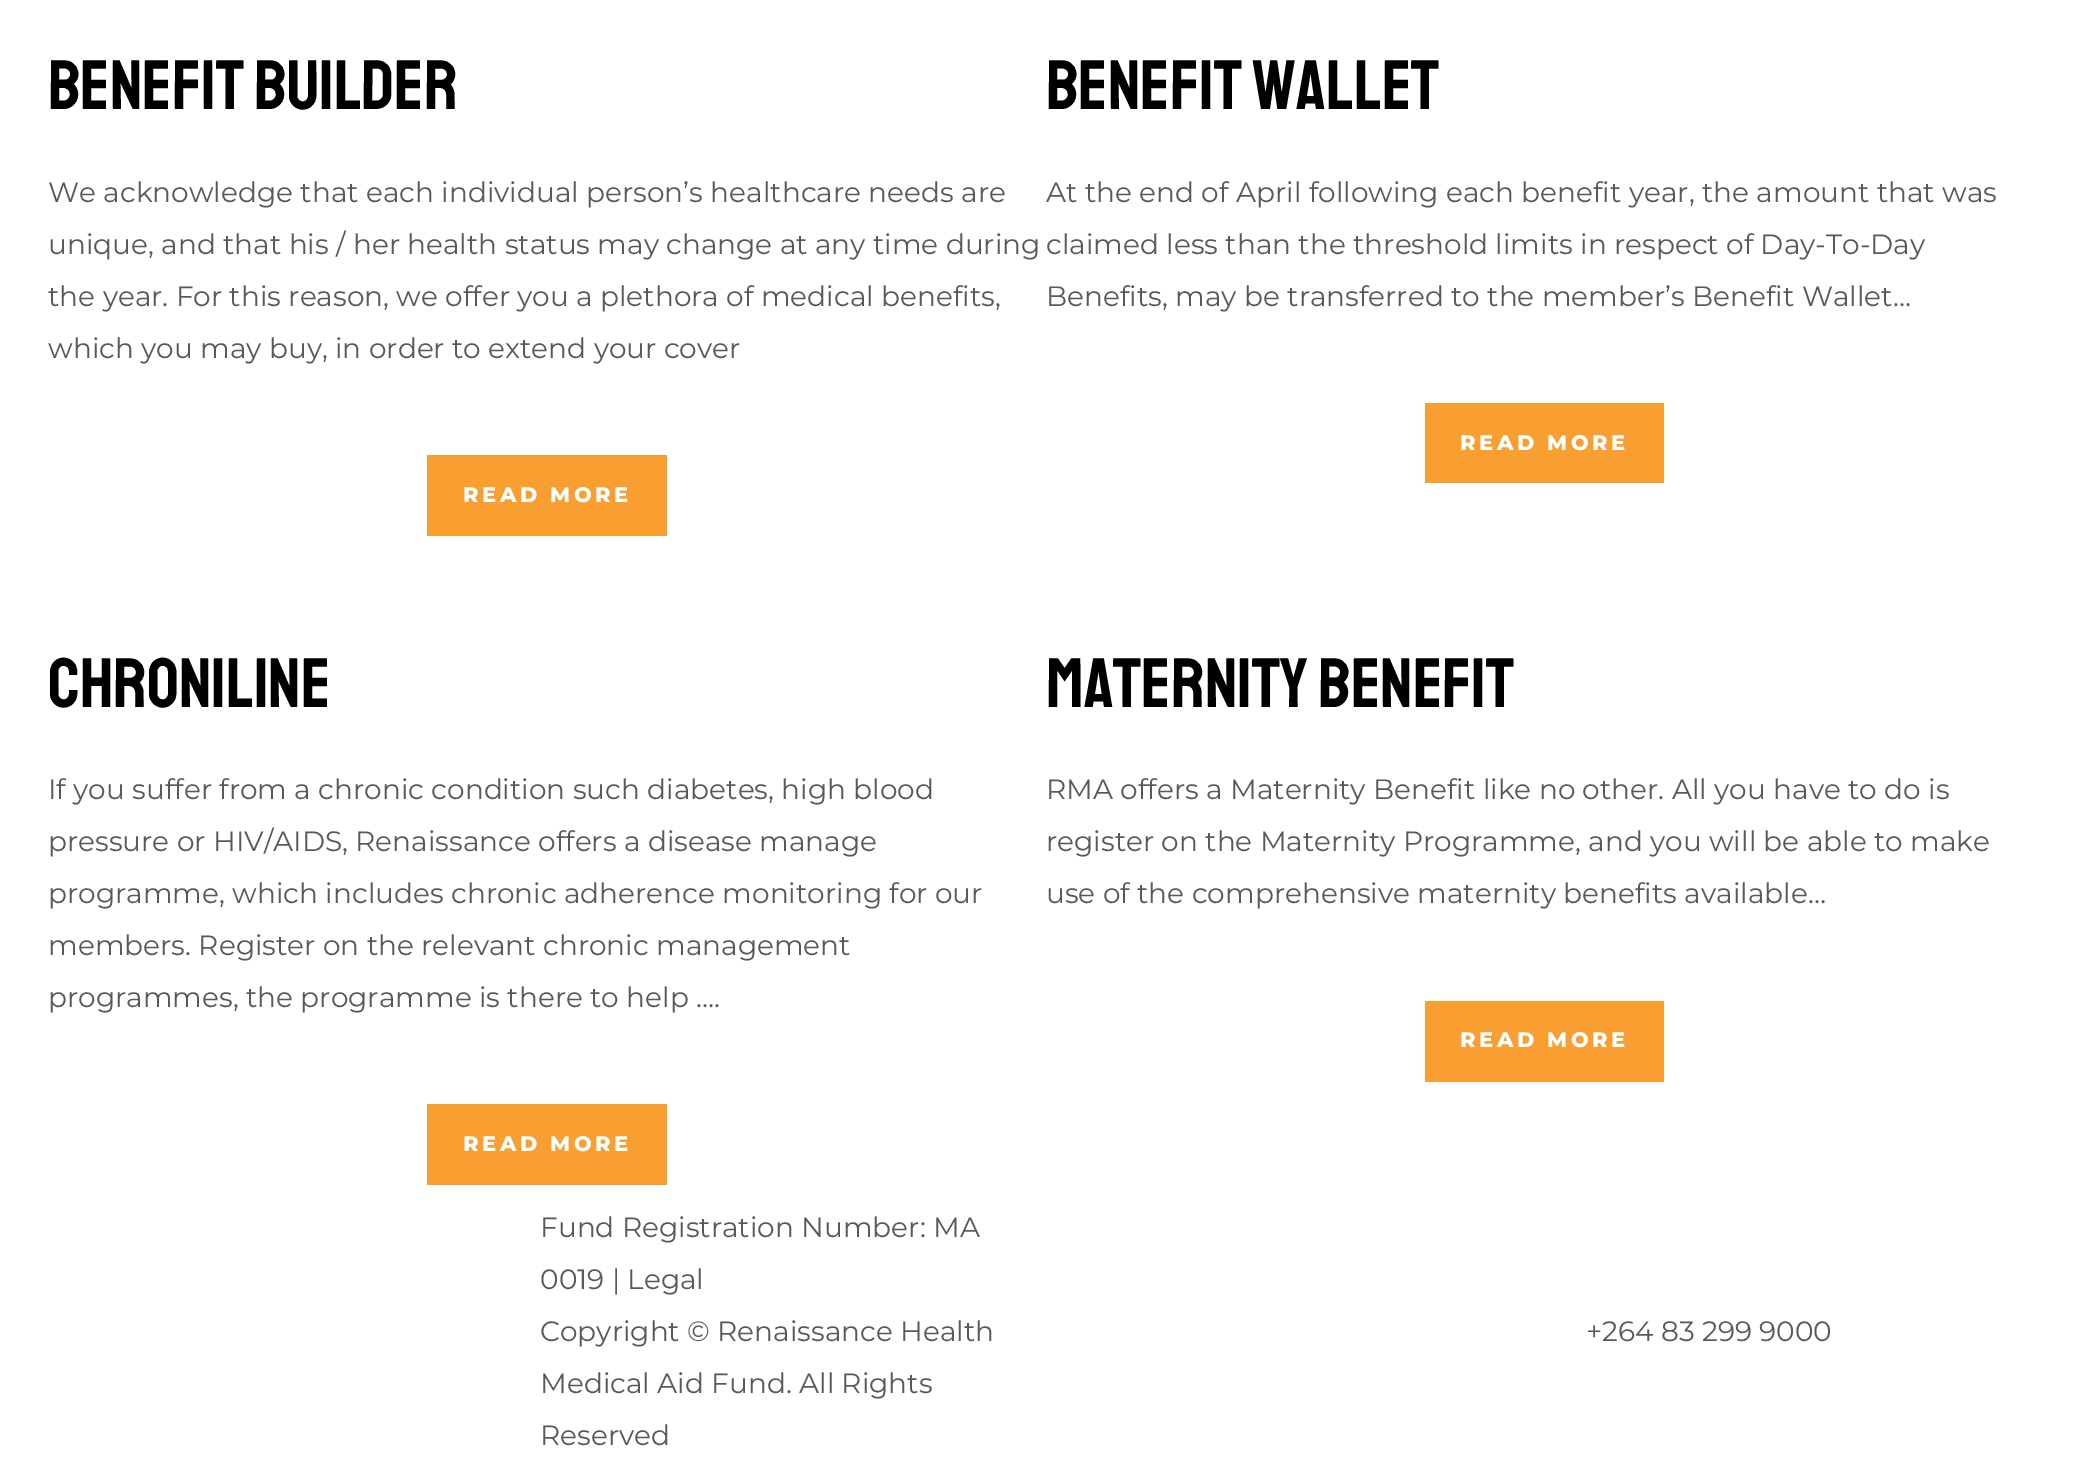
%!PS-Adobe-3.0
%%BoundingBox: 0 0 2090 1477
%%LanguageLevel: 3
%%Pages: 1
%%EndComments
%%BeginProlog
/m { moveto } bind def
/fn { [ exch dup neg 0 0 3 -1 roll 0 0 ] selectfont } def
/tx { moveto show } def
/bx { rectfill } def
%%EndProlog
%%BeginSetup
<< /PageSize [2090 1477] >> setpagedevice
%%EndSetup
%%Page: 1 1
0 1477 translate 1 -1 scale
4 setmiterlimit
1 setgray
0 0 2090 1477 bx
/Staatliches-Regular 70 fn
0 setgray
(Benefit Builder) 48 109 tx
/Montserrat-Regular 28 fn
0.349 setgray
(We acknowledge that each individual person’s healthcare needs are) 48 202 tx
(unique, and that his / her health status may change at any time during) 48 254 tx
(the year. For this reason, we offer you a plethora of medical benefits,) 48 306 tx
(which you may buy, in order to extend your cover) 48 358 tx
0.976 0.624 0.196 setrgbcolor
427 455 240 81 bx
/Montserrat-ExtraBold 21 fn
1 setgray
463 502 m 3.5 0 (READ MORE) ashow
/Staatliches-Regular 70 fn
0 setgray
(Benefit Wallet) 1046 109 tx
/Montserrat-Regular 28 fn
0.349 setgray
(At the end of April following each benefit year, the amount that was) 1046 202 tx
(claimed less than the threshold limits in respect of Day-To-Day) 1046 254 tx
(Benefits, may be transferred to the member’s Benefit Wallet…) 1046 306 tx
0.976 0.624 0.196 setrgbcolor
1425 403 239 80 bx
/Montserrat-ExtraBold 21 fn
1 setgray
1460 450 m 3.5 0 (READ MORE) ashow
/Staatliches-Regular 70 fn
0 setgray
(Chroniline) 48 707 tx
/Montserrat-Regular 28 fn
0.349 setgray
(If you suffer from a chronic condition such diabetes, high blood) 48 799 tx
(pressure or HIV/AIDS, Renaissance offers a disease manage) 48 851 tx
(programme, which includes chronic adherence monitoring for our) 48 903 tx
(members. Register on the relevant chronic management) 48 955 tx
(programmes, the programme is there to help ….) 48 1007 tx
0.976 0.624 0.196 setrgbcolor
427 1104 240 81 bx
/Montserrat-ExtraBold 21 fn
1 setgray
463 1151 m 3.5 0 (READ MORE) ashow
/Staatliches-Regular 70 fn
0 setgray
(Maternity Benefit) 1046 707 tx
/Montserrat-Regular 28 fn
0.349 setgray
(RMA offers a Maternity Benefit like no other. All you have to do is) 1046 799 tx
(register on the Maternity Programme, and you will be able to make) 1046 851 tx
(use of the comprehensive maternity benefits available…) 1046 903 tx
0.976 0.624 0.196 setrgbcolor
1425 1001 239 81 bx
/Montserrat-ExtraBold 21 fn
1 setgray
1460 1047 m 3.5 0 (READ MORE) ashow
/Montserrat-Regular 28 fn
0.349 setgray
(Fund Registration Number: MA) 540 1237 tx
(0019 | Legal) 540 1289 tx
(Copyright © Renaissance Health) 540 1341 tx
(Medical Aid Fund. All Rights) 540 1393 tx
(Reserved) 540 1445 tx
(+264 83 299 9000) 1586 1341 tx
showpage
%%EOF
